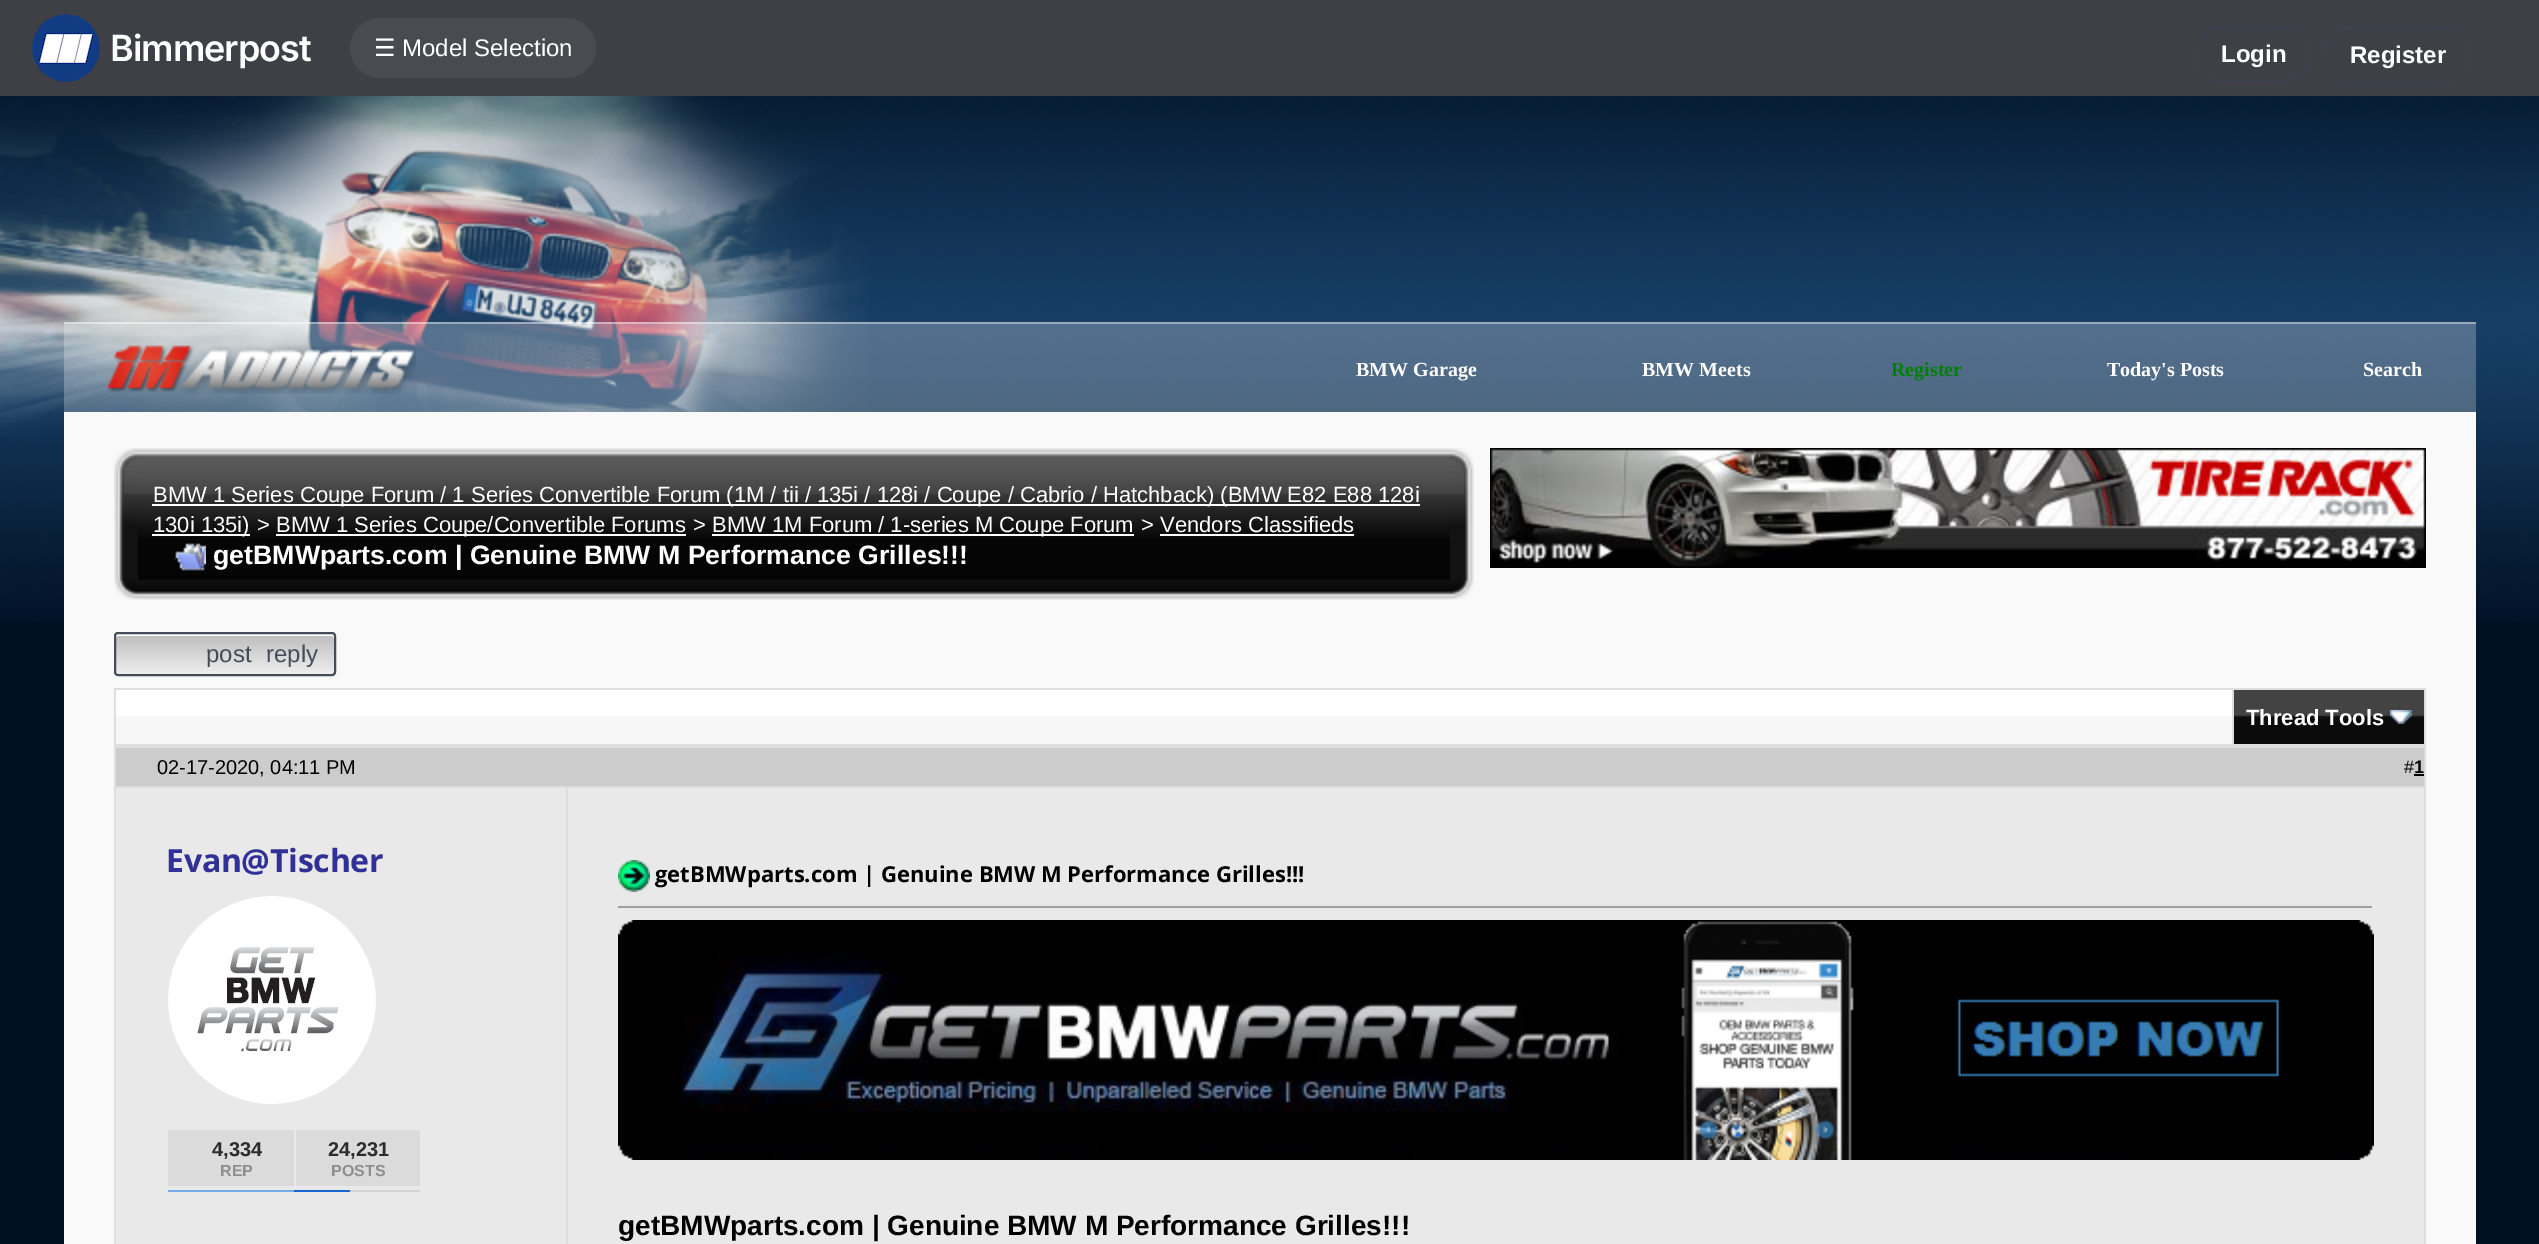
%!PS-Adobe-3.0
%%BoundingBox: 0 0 2539 1244
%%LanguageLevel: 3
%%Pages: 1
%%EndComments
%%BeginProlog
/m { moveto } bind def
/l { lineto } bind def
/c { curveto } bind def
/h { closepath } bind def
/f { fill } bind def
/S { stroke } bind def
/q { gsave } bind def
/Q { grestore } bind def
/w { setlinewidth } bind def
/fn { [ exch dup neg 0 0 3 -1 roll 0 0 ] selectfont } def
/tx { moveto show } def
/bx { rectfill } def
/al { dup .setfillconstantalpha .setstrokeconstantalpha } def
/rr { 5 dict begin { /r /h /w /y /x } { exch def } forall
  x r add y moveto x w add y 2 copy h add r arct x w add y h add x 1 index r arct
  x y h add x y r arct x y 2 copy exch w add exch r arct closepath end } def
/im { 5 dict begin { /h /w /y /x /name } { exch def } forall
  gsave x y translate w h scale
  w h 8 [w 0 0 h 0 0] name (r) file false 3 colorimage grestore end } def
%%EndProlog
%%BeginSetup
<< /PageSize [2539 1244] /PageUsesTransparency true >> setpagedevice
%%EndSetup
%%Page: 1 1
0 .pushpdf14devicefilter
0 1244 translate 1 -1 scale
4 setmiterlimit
0.004 0.067 0.141 setrgbcolor
0 0 2539 1244 bx
(image0.raw) 0 96 2539 525 im
0.243 0.251 0.275 setrgbcolor
0 0 2539 96 bx
(image1.raw) 32 14 68 68 im
/Inter-SemiBold 36 fn
1 setgray
110 61 m -1 0 (Bimmerpost) ashow
0.286 0.294 0.318 setrgbcolor
350 18 246 60 30 rr f
/DejaVuSans-Regular 24 fn
1 setgray
(☰) 374 56 tx
/LiberationSans-Regular 24 fn
(Model Selection) 402 56 tx
0.235 0.255 0.31 setrgbcolor
2 w
2195 27 116 54 27 rr S
/LiberationSans-Bold 24 fn
1 setgray
(Login) 2221 62 tx
0.235 0.255 0.31 setrgbcolor
2325 27 146 56 27 rr S
1 setgray
(Register) 2350 63 tx
(image2.raw) 0 96 869 340 im
0.25 al
64 322 2412 90 bx
1 al
(image3.raw) 108 345 308 49 im
0.41 al
64 322 2412 2 bx
1 al
0.976 setgray
64 412 2412 24 bx
/LiberationSerif-Bold 20 fn
1 setgray
(BMW Garage) 1356 376 tx
(BMW Meets) 1642 376 tx
0 0.502 0 setrgbcolor
(Register) 1891 376 tx
1 setgray
(Today's Posts) 2107 376 tx
(Search) 2363 376 tx
0.976 setgray
64 436 2412 808 bx
(image4.raw) 114 448 24 22 im
(image5.raw) 138 448 1312 22 im
(image6.raw) 1450 448 24 22 im
(image7.raw) 114 470 24 110 im
(image8.raw) 138 470 1312 110 im
1 setgray
152 504 1268 2 bx
/LiberationSans-Regular 22 fn
(BMW 1 Series Coupe Forum / 1 Series Convertible Forum \(1M / tii / 135i / 128i / Coupe / Cabrio / Hatchback\) \(BMW E82 E88 128i) 153 502 tx
152 534 98 2 bx
(130i 135i\)) 153 532 tx
(>) 257 532 tx
276 534 410 2 bx
(BMW 1 Series Coupe/Convertible Forums) 276 532 tx
(>) 693 532 tx
712 534 422 2 bx
(BMW 1M Forum / 1-series M Coupe Forum) 712 532 tx
(> Vendors Classifieds) 1141 532 tx
1160 534 194 2 bx
(image9.raw) 173 543 33 28 im
/LiberationSans-Bold 26.7 fn
(getBMWparts.com | Genuine BMW M Performance Grilles!!!) 213 564 tx
(image10.raw) 1450 470 24 110 im
(image11.raw) 114 580 24 20 im
(image12.raw) 138 580 1312 20 im
(image13.raw) 1450 580 24 20 im
(image14.raw) 1490 448 936 120 im
q
114 632 222 44 4 rr clip newpath
q 114 634 m 336 634 l 336 674 l 114 674 l h clip newpath
<< /ShadingType 2 /ColorSpace /DeviceRGB /Coords [225 634 225 674] /Extend [true true] /Function << /FunctionType 2 /Domain [0 1] /C0 [0.741 0.741 0.741] /C1 [0.937 0.933 0.933] /N 1 >> >> shfill Q
Q
118 636 m 332 636 l 333 636 334 637 334 638 c 334 636 l 334 635 333 634 332 634 c 118 634 l 117 634 116 635 116 636 c 116 638 l 116 637 117 636 118 636 c h f
0.267 0.298 0.353 setrgbcolor
115 633 220 42 3 rr S
/LiberationSans-Regular 24 fn
206 662 m 8 0 32 (post reply) widthshow
0.871 setgray
114 688 2312 58 bx
0.969 setgray
116 716 2116 28 bx
1 setgray
116 690 2116 26 bx
(image15.raw) 2234 690 190 54 im
/LiberationSans-Bold 22 fn
(Thread Tools) 2246 725 tx
(image16.raw) 2390 710 22 14 im
0.8 setgray
116 748 2308 38 bx
0.871 setgray
114 746 2312 2 bx
114 786 454 2 bx
114 746 2 498 bx
/LiberationSans-Regular 20 fn
0 setgray
(02-17-2020, 04:11 PM) 157 774 tx
0.871 setgray
2424 746 2 498 bx
568 786 1858 2 bx
/LiberationSans-Regular 18 fn
0 setgray
(#) 2404 773 tx
/LiberationSans-Bold 18 fn
(1) 2414 773 tx
2414 774 10 2 bx
0.914 setgray
116 788 450 456 bx
0.871 setgray
566 788 2 456 bx
/OpenSans-Bold 32 fn
0.188 0.188 0.588 setrgbcolor
166 872 m -0.25 0 (Evan@Tischer) ashow
(image17.raw) 168 896 208 208 im
0.859 setgray
168 1130 126 56 bx
/LiberationSans-Bold 20 fn
0.173 setgray
(4,334) 212 1156 tx
/LiberationSans-Bold 16 fn
0.557 setgray
(REP) 220 1176 tx
0.859 setgray
296 1130 124 56 bx
/LiberationSans-Bold 20 fn
0.173 setgray
(24,231) 328 1156 tx
/LiberationSans-Bold 16 fn
0.557 setgray
(POSTS) 331 1176 tx
0.824 setgray
350 1190 70 2 bx
0.082 0.396 0.812 setrgbcolor
294 1190 56 2 bx
0.467 0.675 0.918 setrgbcolor
168 1190 126 2 bx
0.914 setgray
568 788 1856 456 bx
(image18.raw) 618 860 32 32 im
/OpenSans-Bold 22 fn
0 setgray
(getBMWparts.com | Genuine BMW M Performance Grilles!!!) 655 882 tx
0.624 setgray
618 906 1756 2 bx
0.933 setgray
2372 906 2 2 bx
(image19.raw) 618 920 1756 240 im
/LiberationSans-Bold 28 fn
0 setgray
(getBMWparts.com | Genuine BMW M Performance Grilles!!!) 618 1235 tx
.poppdf14devicefilter showpage
%%EOF
